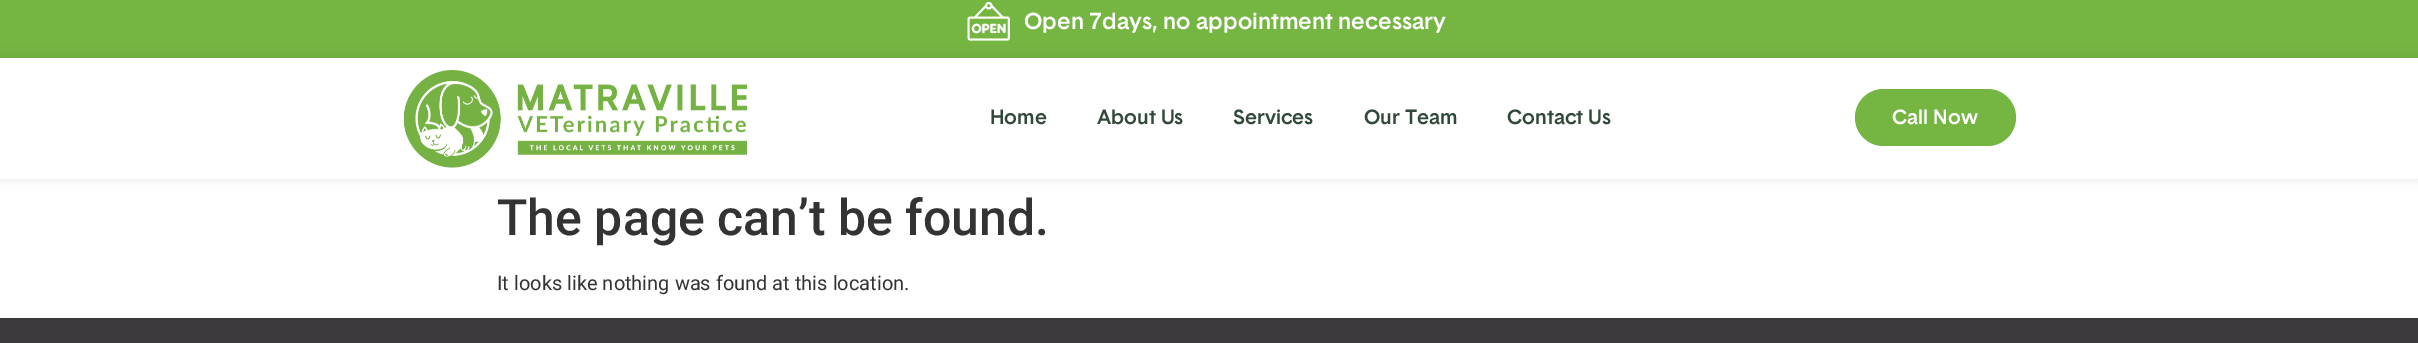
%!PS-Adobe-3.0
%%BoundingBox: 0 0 2418 343
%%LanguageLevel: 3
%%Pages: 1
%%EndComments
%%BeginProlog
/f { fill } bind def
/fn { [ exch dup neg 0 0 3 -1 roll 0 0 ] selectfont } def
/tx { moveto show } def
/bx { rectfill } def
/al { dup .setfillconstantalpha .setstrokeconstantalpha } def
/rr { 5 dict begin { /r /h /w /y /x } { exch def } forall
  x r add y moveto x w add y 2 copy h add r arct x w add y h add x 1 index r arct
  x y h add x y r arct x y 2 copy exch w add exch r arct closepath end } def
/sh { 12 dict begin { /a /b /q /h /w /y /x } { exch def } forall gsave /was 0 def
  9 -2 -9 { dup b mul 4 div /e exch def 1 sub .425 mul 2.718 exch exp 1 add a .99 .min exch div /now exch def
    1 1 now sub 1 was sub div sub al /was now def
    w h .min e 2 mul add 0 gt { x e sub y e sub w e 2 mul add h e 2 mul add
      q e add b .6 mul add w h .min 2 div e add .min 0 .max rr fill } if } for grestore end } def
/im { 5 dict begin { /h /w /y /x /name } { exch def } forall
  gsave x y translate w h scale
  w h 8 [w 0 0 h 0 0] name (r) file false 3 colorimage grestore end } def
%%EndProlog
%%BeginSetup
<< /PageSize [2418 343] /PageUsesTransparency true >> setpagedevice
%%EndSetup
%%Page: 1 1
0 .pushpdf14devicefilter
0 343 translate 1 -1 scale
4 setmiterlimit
1 setgray
0 0 2418 343 bx
0.459 0.71 0.259 setrgbcolor
0 0 2418 58 bx
(image0.raw) 967 1 43 40 im
/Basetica-Medium 22.5 fn
1 setgray
(Open 7days, no appointment necessary) 1024 29 tx
0 setgray
0 58 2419 121 0 6 0.1 sh
1 setgray
0 58 2418 121 bx
(image1.raw) 404 70 343 98 im
/Basetica-Medium 20 fn
0.192 0.286 0.224 setrgbcolor
(Home) 990 124 tx
(About Us) 1097 124 tx
(Services) 1233 124 tx
(Our Team) 1364 124 tx
(Contact Us) 1507 124 tx
0.459 0.71 0.259 setrgbcolor
1855 89 161 57 28.5 rr f
1 setgray
(Call Now) 1892 124 tx
/Roboto-Medium 50 fn
0.2 setgray
(The page can’t be found.) 497 235 tx
/Roboto-Regular 20 fn
(It looks like nothing was found at this location.) 497 290 tx
0.239 0.224 0.235 setrgbcolor
0 318 2418 25 bx
.poppdf14devicefilter showpage
%%EOF
